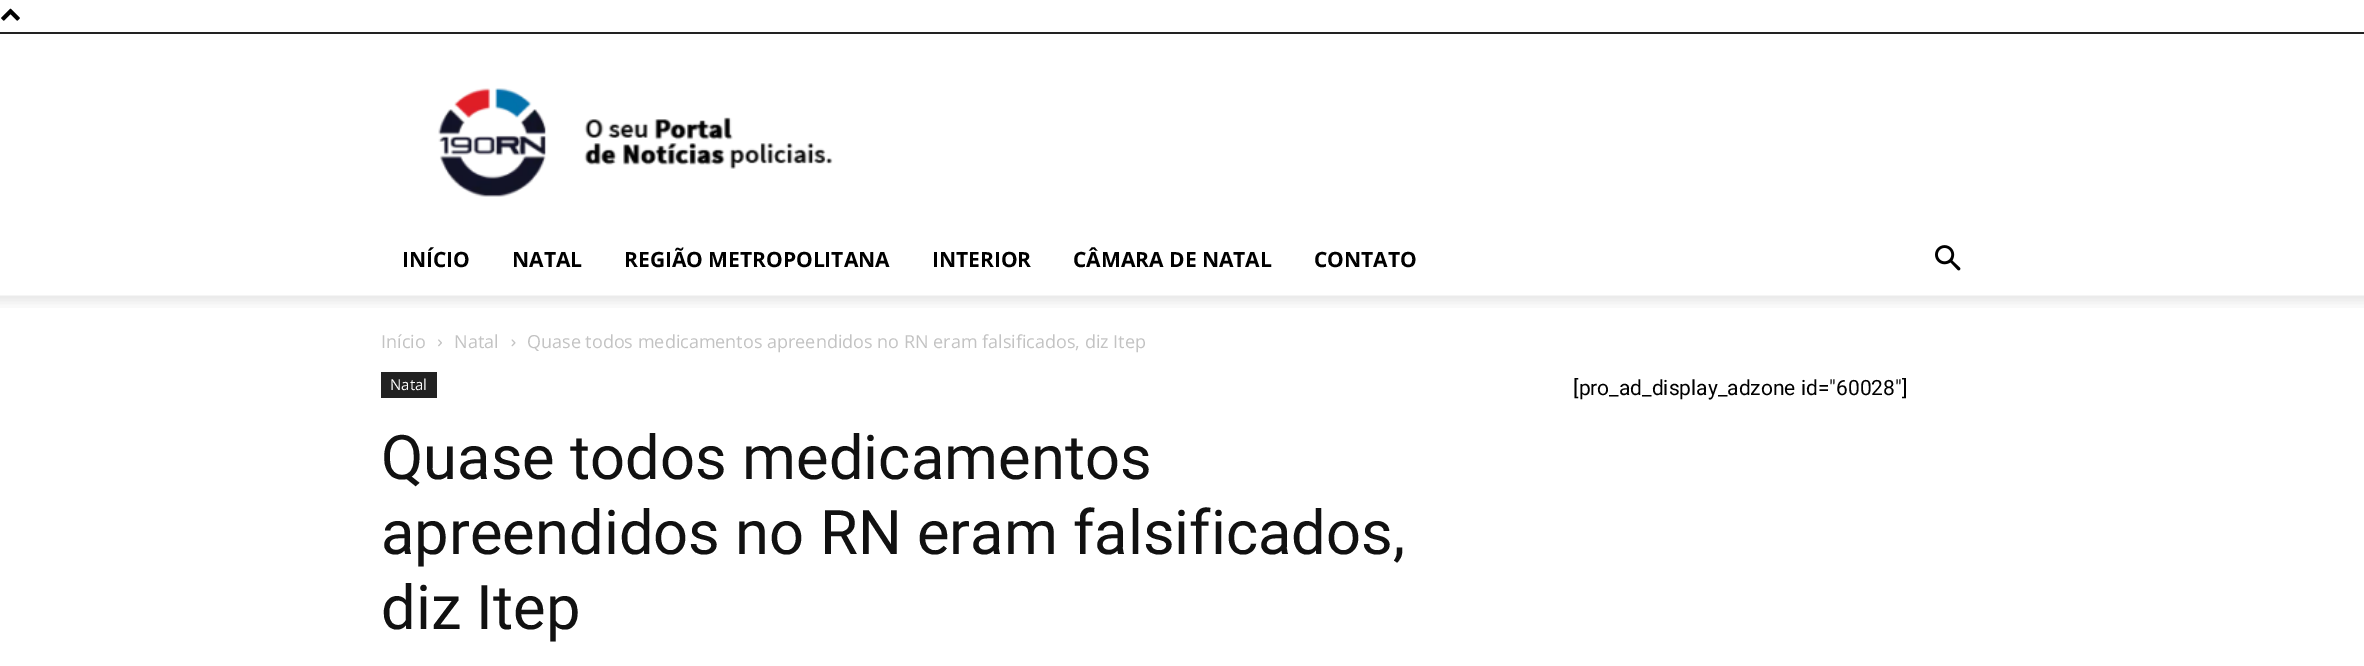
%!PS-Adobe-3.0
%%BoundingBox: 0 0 2364 666
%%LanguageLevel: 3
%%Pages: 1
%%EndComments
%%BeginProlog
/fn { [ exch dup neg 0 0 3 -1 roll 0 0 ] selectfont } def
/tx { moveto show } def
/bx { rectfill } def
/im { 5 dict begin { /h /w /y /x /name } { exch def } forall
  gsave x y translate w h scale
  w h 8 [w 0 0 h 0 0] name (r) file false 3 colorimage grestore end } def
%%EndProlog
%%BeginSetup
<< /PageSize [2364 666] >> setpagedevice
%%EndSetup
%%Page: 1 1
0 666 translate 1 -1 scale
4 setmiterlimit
1 setgray
0 0 2364 666 bx
(image0.raw) 1 8 19 13 im
0.133 setgray
0 32 2364 2 bx
(image1.raw) 438 88 395 109 im
/OpenSans-Bold 21 fn
0 setgray
(INÍCIO) 402 267 tx
(NATAL) 512 267 tx
(REGIÃO METROPOLITANA) 624 267 tx
(INTERIOR) 932 267 tx
(CÂMARA DE NATAL) 1073 267 tx
(CONTATO) 1314 267 tx
(image2.raw) 1935 245 26 26 im
(image3.raw) 0 295 2364 13 im
/OpenSans-Regular 18 fn
0.765 setgray
(Início) 381 348 tx
(image4.raw) 438 339 4 8 im
(Natal) 454 348 tx
(image5.raw) 511 339 5 8 im
(Quase todos medicamentos apreendidos no RN eram falsificados, diz Itep) 527 348 tx
0.133 setgray
381 372 56 26 bx
/OpenSans-Regular 15 fn
1 setgray
(Natal) 390 390 tx
/Roboto-Regular 61.5 fn
0.067 setgray
(Quase todos medicamentos) 381 479 tx
(apreendidos no RN eram falsificados,) 381 554 tx
(diz Itep) 381 629 tx
/Roboto-Regular 21 fn
0 setgray
([pro_ad_display_adzone id="60028"]) 1573 395 tx
showpage
%%EOF
